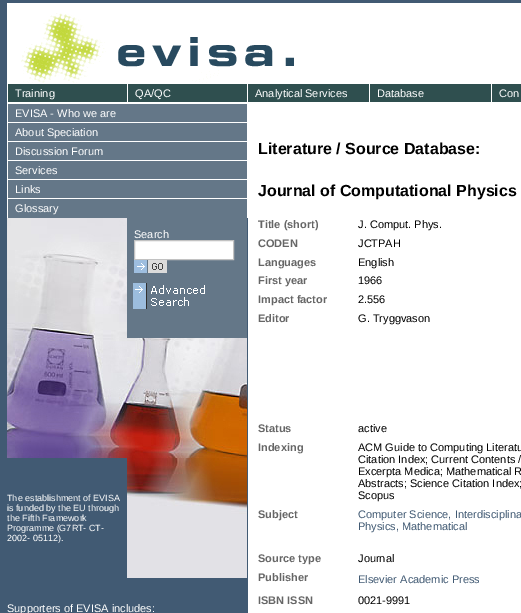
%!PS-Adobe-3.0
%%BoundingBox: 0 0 521 613
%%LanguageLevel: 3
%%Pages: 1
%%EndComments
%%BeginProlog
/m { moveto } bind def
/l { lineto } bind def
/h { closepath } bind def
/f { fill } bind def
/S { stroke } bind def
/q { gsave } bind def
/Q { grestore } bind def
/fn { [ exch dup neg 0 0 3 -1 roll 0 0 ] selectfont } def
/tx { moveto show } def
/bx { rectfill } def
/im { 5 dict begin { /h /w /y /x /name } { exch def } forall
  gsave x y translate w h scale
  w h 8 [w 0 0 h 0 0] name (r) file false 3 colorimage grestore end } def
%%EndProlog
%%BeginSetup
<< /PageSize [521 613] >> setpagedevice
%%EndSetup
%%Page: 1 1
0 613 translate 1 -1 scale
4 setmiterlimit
0.255 0.353 0.451 setrgbcolor
0 0 521 613 bx
1 setgray
7 3 514 80 bx
(image0.raw) 21 13 273 70 im
7 83 514 20 bx
0.184 0.31 0.31 setrgbcolor
8 84 119 18 bx
/LiberationSans-Regular 11 fn
1 setgray
(Training) 15 97 tx
0.184 0.31 0.31 setrgbcolor
128 84 119 18 bx
1 setgray
(QA/QC) 135 97 tx
0.184 0.31 0.31 setrgbcolor
248 84 121 18 bx
1 setgray
(Analytical Services) 255 97 tx
0.184 0.31 0.31 setrgbcolor
370 84 121 18 bx
1 setgray
(Database) 377 97 tx
0.184 0.31 0.31 setrgbcolor
492 84 29 18 bx
1 setgray
(Con) 499 97 tx
7 103 241 115 bx
0.392 0.467 0.533 setrgbcolor
8 104 239 18 bx
1 setgray
(EVISA - Who we are) 15 117 tx
0.392 0.467 0.533 setrgbcolor
8 123 239 18 bx
1 setgray
(About Speciation) 15 136 tx
0.392 0.467 0.533 setrgbcolor
8 142 239 18 bx
1 setgray
(Discussion Forum) 15 155 tx
0.392 0.467 0.533 setrgbcolor
8 161 239 18 bx
1 setgray
(Services) 15 174 tx
0.392 0.467 0.533 setrgbcolor
8 180 239 18 bx
1 setgray
(Links) 15 193 tx
0.392 0.467 0.533 setrgbcolor
8 199 239 19 bx
1 setgray
(Glossary) 15 212 tx
(image1.raw) 7 218 120 120 im
0.392 0.467 0.533 setrgbcolor
127 218 120 120 bx
1 setgray
(Search) 134 238 tx
134.5 240.5 m 233.5 240.5 l 233.5 259.5 l 134.5 259.5 l h q f Q
0.761 setgray
S
(image2.raw) 134 260 33 13 im
(image3.raw) 133 283 72 26 im
(image4.raw) 7 338 120 120 im
(image5.raw) 127 338 120 120 im
/LiberationSans-Regular 9 fn
1 setgray
(The establishment of EVISA) 7 501 tx
(is funded by the EU through) 7 511 tx
(the Fifth Framework) 7 521 tx
(Programme \(G7RT- CT-) 7 531 tx
(2002- 05112\).) 7 541 tx
(image6.raw) 127 458 120 120 im
/LiberationSans-Regular 11 fn
(Supporters of EVISA includes:) 7 612 tx
248 103 273 510 bx
/LiberationSans-Bold 16 fn
0 setgray
(Literature / Source Database:) 258 154 tx
(Journal of Computational Physics) 258 196 tx
/LiberationSans-Bold 11 fn
0.4 setgray
(Title \(short\)) 258 228 tx
/LiberationSans-Regular 11 fn
0 setgray
(J. Comput. Phys.) 358 228 tx
/LiberationSans-Bold 11 fn
0.4 setgray
(CODEN) 258 247 tx
/LiberationSans-Regular 11 fn
0 setgray
(JCTPAH) 358 247 tx
/LiberationSans-Bold 11 fn
0.4 setgray
(Languages) 258 266 tx
/LiberationSans-Regular 11 fn
0 setgray
(English) 358 266 tx
/LiberationSans-Bold 11 fn
0.4 setgray
(First year) 258 284 tx
/LiberationSans-Regular 11 fn
0 setgray
(1966) 358 284 tx
/LiberationSans-Bold 11 fn
0.4 setgray
(Impact factor) 258 303 tx
/LiberationSans-Regular 11 fn
0 setgray
(2.556) 358 303 tx
/LiberationSans-Bold 11 fn
0.4 setgray
(Editor) 258 322 tx
/LiberationSans-Regular 11 fn
0 setgray
(G. Tryggvason) 358 322 tx
/LiberationSans-Bold 11 fn
0.4 setgray
(Status) 258 432 tx
/LiberationSans-Regular 11 fn
0 setgray
(active) 358 432 tx
/LiberationSans-Bold 11 fn
0.4 setgray
(Indexing) 258 451 tx
/LiberationSans-Regular 11 fn
0 setgray
(ACM Guide to Computing Literatu) 358 451 tx
(Citation Index; Current Contents /) 358 463 tx
(Excerpta Medica; Mathematical R) 358 475 tx
(Abstracts; Science Citation Index;) 358 487 tx
(Scopus) 358 499 tx
/LiberationSans-Bold 11 fn
0.4 setgray
(Subject) 258 518 tx
/LiberationSans-Regular 11 fn
0.255 0.353 0.451 setrgbcolor
(Computer Science, Interdisciplina) 358 518 tx
(Physics, Mathematical) 358 530 tx
/LiberationSans-Bold 11 fn
0.4 setgray
(Source type) 258 562 tx
/LiberationSans-Regular 11 fn
0 setgray
(Journal) 358 562 tx
1 setgray
302 564 3 1 bx
/LiberationSans-Bold 11 fn
0.4 setgray
(Publisher) 258 581 tx
/LiberationSans-Regular 11 fn
0.255 0.353 0.451 setrgbcolor
(Elsevier Academic Press) 358 583 tx
/LiberationSans-Bold 11 fn
0.4 setgray
(ISBN ISSN) 258 604 tx
/LiberationSans-Regular 11 fn
0 setgray
(0021-9991) 358 604 tx
showpage
%%EOF
